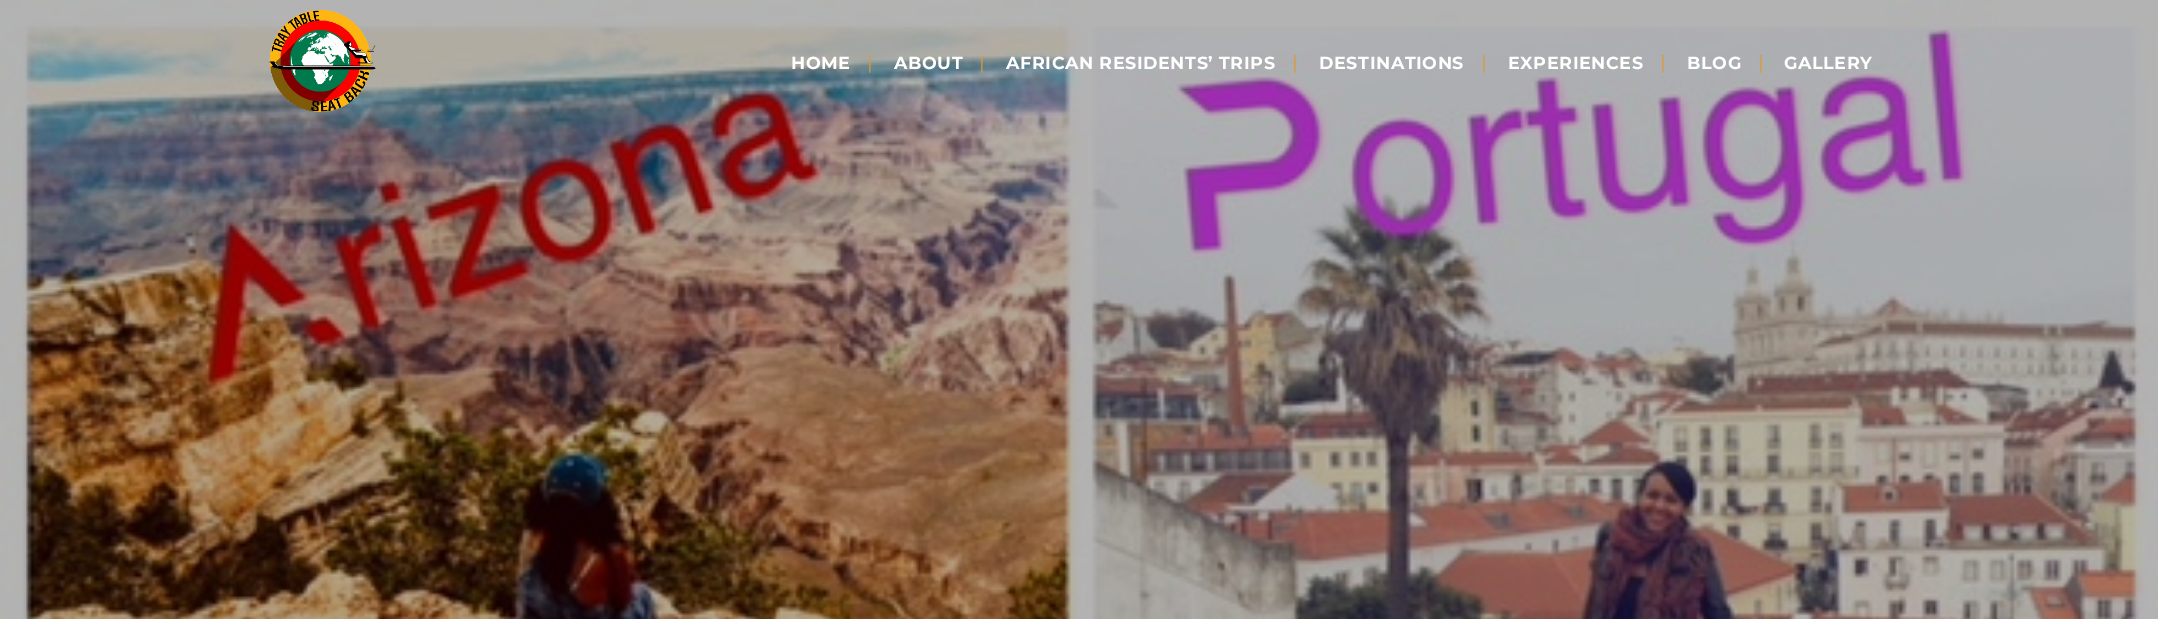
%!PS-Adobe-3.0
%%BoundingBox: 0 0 2158 619
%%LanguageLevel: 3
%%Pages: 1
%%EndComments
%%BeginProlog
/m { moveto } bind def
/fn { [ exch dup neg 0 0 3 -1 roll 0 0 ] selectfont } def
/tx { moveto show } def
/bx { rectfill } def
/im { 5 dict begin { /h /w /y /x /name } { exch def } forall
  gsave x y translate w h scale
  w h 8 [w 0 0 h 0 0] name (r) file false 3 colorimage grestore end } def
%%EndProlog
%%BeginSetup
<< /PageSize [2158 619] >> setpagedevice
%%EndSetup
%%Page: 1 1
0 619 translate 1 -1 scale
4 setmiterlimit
1 setgray
0 0 2158 619 bx
(image0.raw) 0 0 2158 619 im
(image1.raw) 268 9 108 104 im
/Montserrat-Bold 17.5 fn
791 69 m 0.6 0 (HOME) ashow
/Montserrat-Regular 19 fn
0.867 0.6 0.2 setrgbcolor
(|) 867 69 tx
/Montserrat-Bold 17.5 fn
1 setgray
894 69 m 0.6 0 (ABOUT) ashow
/Montserrat-Regular 19 fn
0.867 0.6 0.2 setrgbcolor
(|) 979 69 tx
/Montserrat-Bold 17.5 fn
1 setgray
1006 69 m 0.6 0 (AFRICAN RESIDENTS’ TRIPS) ashow
/Montserrat-Regular 19 fn
0.867 0.6 0.2 setrgbcolor
(|) 1292 69 tx
/Montserrat-Bold 17.5 fn
1 setgray
1319 69 m 0.6 0 (DESTINATIONS) ashow
/Montserrat-Regular 19 fn
0.867 0.6 0.2 setrgbcolor
(|) 1481 69 tx
/Montserrat-Bold 17.5 fn
1 setgray
1508 69 m 0.6 0 (EXPERIENCES) ashow
/Montserrat-Regular 19 fn
0.867 0.6 0.2 setrgbcolor
(|) 1660 69 tx
/Montserrat-Bold 17.5 fn
1 setgray
1687 69 m 0.6 0 (BLOG) ashow
/Montserrat-Regular 19 fn
0.867 0.6 0.2 setrgbcolor
(|) 1758 69 tx
/Montserrat-Bold 17.5 fn
1 setgray
1784 69 m 0.6 0 (GALLERY) ashow
showpage
%%EOF
